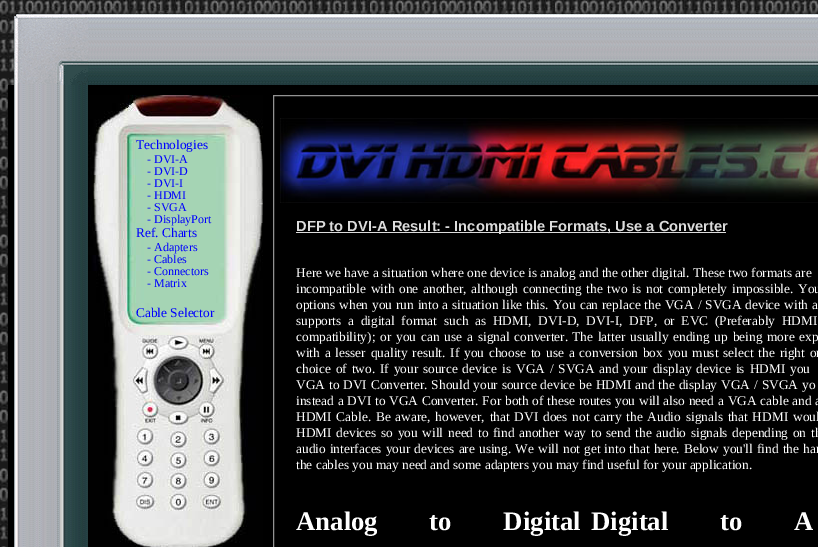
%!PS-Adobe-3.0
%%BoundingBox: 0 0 818 547
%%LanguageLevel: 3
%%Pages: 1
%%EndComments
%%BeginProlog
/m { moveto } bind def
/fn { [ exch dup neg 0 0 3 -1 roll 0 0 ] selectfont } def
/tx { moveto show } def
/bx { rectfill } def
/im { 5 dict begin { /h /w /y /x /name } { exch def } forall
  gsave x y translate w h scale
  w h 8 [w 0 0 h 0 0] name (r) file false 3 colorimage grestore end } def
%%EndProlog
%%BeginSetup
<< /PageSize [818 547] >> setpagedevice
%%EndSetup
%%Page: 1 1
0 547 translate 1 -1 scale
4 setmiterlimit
1 setgray
0 0 818 547 bx
(image0.raw) 0 0 818 547 im
(image1.raw) 14 14 74 71 im
(image2.raw) 88 14 730 71 im
0 setgray
8 85 810 462 bx
(image3.raw) 14 85 74 462 im
(image4.raw) 88 95 175 452 im
/LiberationSerif-Regular 13.35 fn
0 0 1 setrgbcolor
(Technologies) 136 149 tx
/LiberationSerif-Regular 12 fn
(- DVI-A) 147 163 tx
(- DVI-D) 147 175 tx
(- DVI-I) 147 187 tx
(- HDMI) 147 199 tx
(- SVGA) 147 211 tx
(- DisplayPort) 147 223 tx
/LiberationSerif-Regular 13.35 fn
(Ref. Charts) 136 237 tx
/LiberationSerif-Regular 12 fn
(- Adapters) 147 251 tx
(- Cables) 147 263 tx
(- Connectors) 147 275 tx
(- Matrix) 147 287 tx
/LiberationSerif-Regular 13.35 fn
(Cable Selector) 136 317 tx
0.573 setgray
273.5 95.5 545 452 rectstroke
(image5.raw) 280 118 538 85 im
0.863 setgray
296 232 430 1 bx
/LiberationSans-Bold 14.7 fn
(DFP to DVI-A Result: - Incompatible Formats, Use a Converter) 296 231 tx
/LiberationSerif-Regular 13.35 fn
1 setgray
(Here we have a situation where one device is analog and the other digital. These two formats are) 296 277 tx
296 293 m 1.5 0 32 (incompatible with one another, although connecting the two is not completely impossible.) widthshow
798 293 m 2 0 32 (You) widthshow
296 309 m 0.6 0 32 (options when you run into a situation like this. You can replace the VGA / SVGA device with a) widthshow
296 325 m 3.4 0 32 (supports a digital format such as HDMI, DVI-D, DVI-I, DFP, or EVC \(Preferably HDMI) widthshow
296 341 m 1.5 0 32 (compatibility\); or you can use a signal converter.) widthshow
572 341 m 1.5 0 32 (The latter usually ending up being more exp) widthshow
296 357 m 1.5 0 32 (with a lesser quality result. If you choose to use a conversion box you must select the right on) widthshow
296 373 m 1.5 0 32 (choice of two. If your source device is VGA / SVGA and your display device is HDMI you) widthshow
296 389 m 0.6 0 32 (VGA to DVI Converter. Should your source device be HDMI and the display VGA / SVGA yo) widthshow
296 405 m 0.5 0 32 (instead a DVI to VGA Converter. For both of these routes you will also need a VGA cable and a) widthshow
296 421 m 1.5 0 32 (HDMI Cable. Be aware, however, that DVI does not carry the Audio signals that HDMI woul) widthshow
296 437 m 1.4 0 32 (HDMI devices so you will need to find another way to send the audio signals depending on th) widthshow
296 453 m 0.8 0 32 (audio interfaces your devices are using. We will not get into that here. Below you'll find the har) widthshow
(the cables you may need and some adapters you may find useful for your application.) 296 469 tx
/LiberationSerif-Bold 26.75 fn
296 530 m 45 0 32 (Analog to Digital) widthshow
591 530 m 45 0 32 (Digital to A) widthshow
showpage
%%EOF
